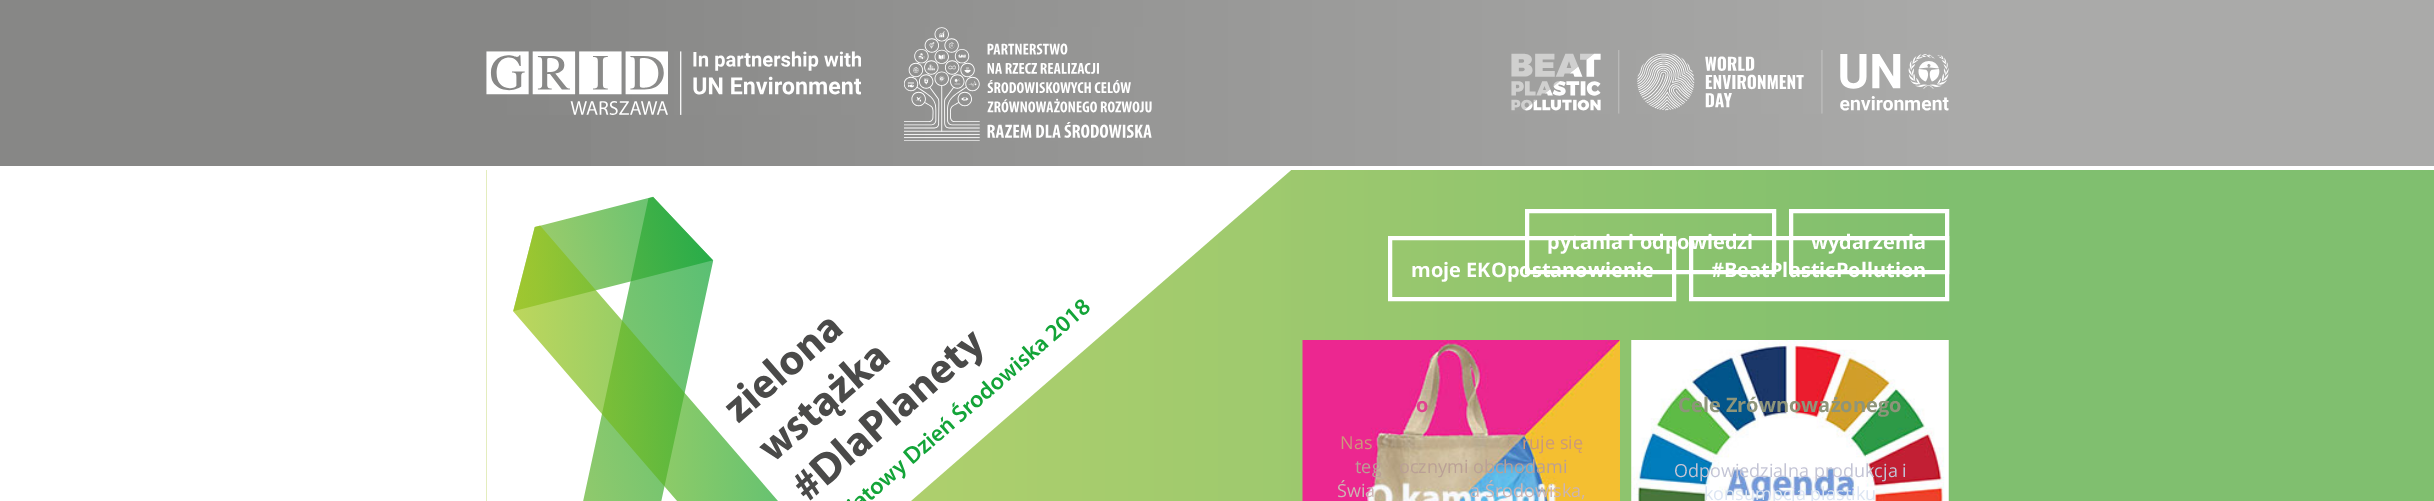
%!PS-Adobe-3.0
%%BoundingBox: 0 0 2434 501
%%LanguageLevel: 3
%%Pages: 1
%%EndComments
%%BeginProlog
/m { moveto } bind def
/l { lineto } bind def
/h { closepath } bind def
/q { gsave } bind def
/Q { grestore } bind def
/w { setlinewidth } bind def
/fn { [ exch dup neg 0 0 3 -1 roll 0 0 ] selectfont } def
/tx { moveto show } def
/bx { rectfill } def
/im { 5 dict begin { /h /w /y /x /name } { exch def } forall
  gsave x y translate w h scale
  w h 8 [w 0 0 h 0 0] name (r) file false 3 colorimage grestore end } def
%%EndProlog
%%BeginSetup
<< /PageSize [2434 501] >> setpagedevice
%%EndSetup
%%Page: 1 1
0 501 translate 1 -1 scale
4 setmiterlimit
0.529 0.529 0.525 setrgbcolor
0 0 2434 501 bx
0.667 0.667 0.663 setrgbcolor
1949 0 485 166 bx
1 setgray
0 166 2434 4 bx
q 591 0 m 1949 0 l 1949 166 l 591 166 l h clip newpath
<< /ShadingType 2 /ColorSpace /DeviceRGB /Coords [486 83 1949 83] /Extend [true true] /Function << /FunctionType 2 /Domain [0 1] /C0 [0.529 0.529 0.525] /C1 [0.667 0.667 0.663] /N 1 >> >> shfill Q
(image0.raw) 486 51 375 64 im
(image1.raw) 904 27 248 114 im
(image2.raw) 1511 50 438 64 im
0 170 486 331 bx
0.502 0.749 0.435 setrgbcolor
1949 170 485 331 bx
q 486 170 m 1949 170 l 1949 501 l 486 501 l h clip newpath
<< /ShadingType 2 /ColorSpace /DeviceRGB /Coords [486 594 1949 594] /Extend [true true] /Function << /FunctionType 2 /Domain [0 1] /C0 [0.757 0.839 0.424] /C1 [0.502 0.749 0.435] /N 1 >> >> shfill Q
(image3.raw) 486 170 805 331 im
1 setgray
4 w
1527 211 247 61 rectstroke
/OpenSans-Bold 20 fn
(pytania i odpowiedzi) 1547 249 tx
1791 211 156 61 rectstroke
(wydarzenia) 1811 249 tx
1390 238 284 61 rectstroke
(moje EKOpostanowienie) 1411 277 tx
1691 238 256 61 rectstroke
(#BeatPlasticPollution) 1711 277 tx
(image4.raw) 1302 340 318 161 im
0.886 0.255 0.565 setrgbcolor
(o) 1416 412 tx
/OpenSans-Regular 18 fn
0.8 0.6 0.478 setrgbcolor
(Nas) 1340 449 tx
(ruje się) 1522 449 tx
0.729 0.627 0.588 setrgbcolor
(teg) 1355 473 tx
(ocznymi obchodami) 1399 473 tx
0.804 0.71 0.702 setrgbcolor
(Świa) 1337 497 tx
(a Środowiska,) 1470 497 tx
(image5.raw) 1631 340 318 161 im
/OpenSans-Bold 20 fn
0.557 0.584 0.478 setrgbcolor
(Cele Zrównoważonego) 1678 412 tx
/OpenSans-Regular 18 fn
0.765 0.769 0.835 setrgbcolor
(Odpowiedzialna produkcja i) 1674 477 tx
0.863 0.898 0.953 setrgbcolor
(konsumpcja plastiku) 1704 500 tx
showpage
%%EOF
